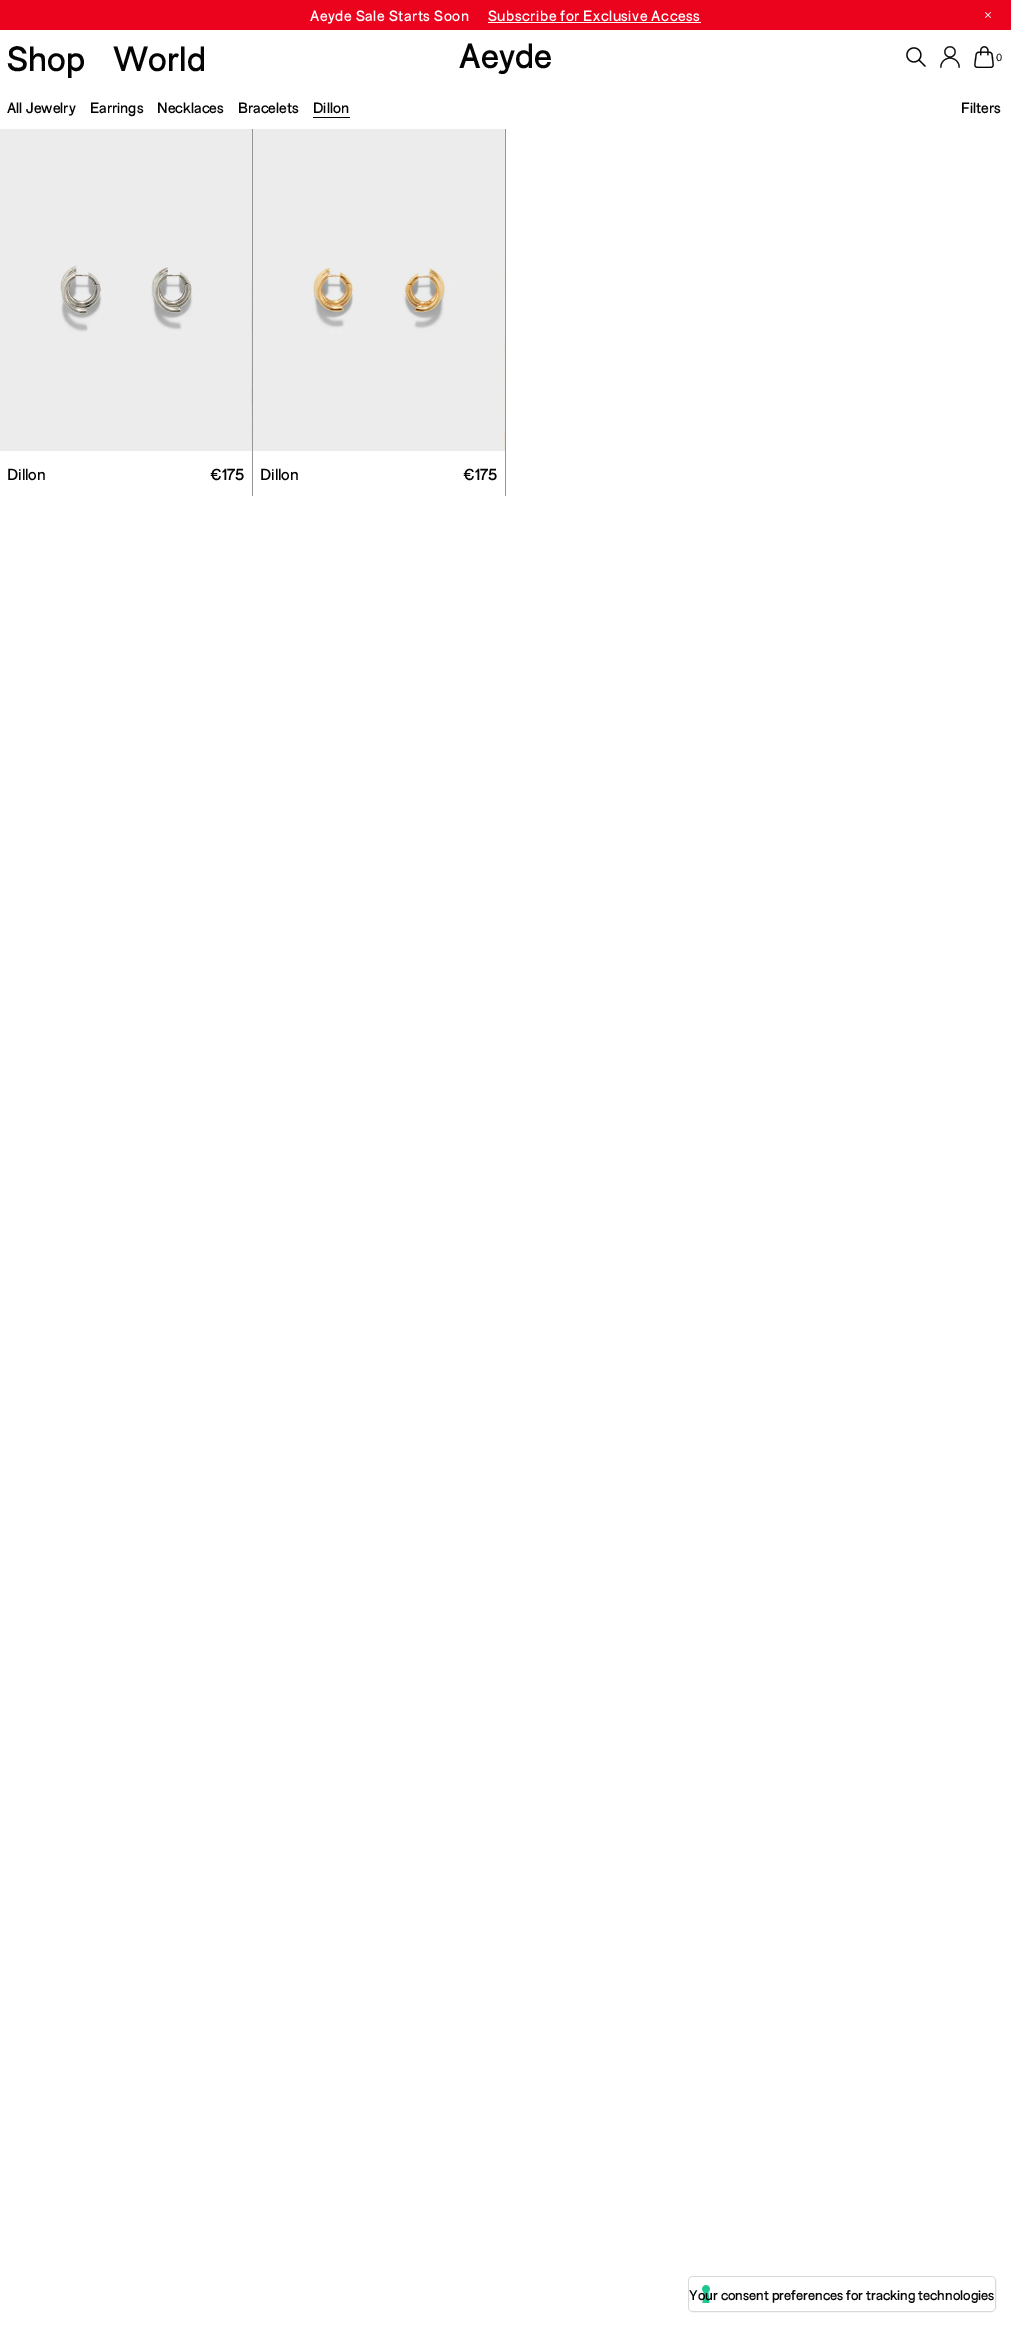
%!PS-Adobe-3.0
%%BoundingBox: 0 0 1026 2327
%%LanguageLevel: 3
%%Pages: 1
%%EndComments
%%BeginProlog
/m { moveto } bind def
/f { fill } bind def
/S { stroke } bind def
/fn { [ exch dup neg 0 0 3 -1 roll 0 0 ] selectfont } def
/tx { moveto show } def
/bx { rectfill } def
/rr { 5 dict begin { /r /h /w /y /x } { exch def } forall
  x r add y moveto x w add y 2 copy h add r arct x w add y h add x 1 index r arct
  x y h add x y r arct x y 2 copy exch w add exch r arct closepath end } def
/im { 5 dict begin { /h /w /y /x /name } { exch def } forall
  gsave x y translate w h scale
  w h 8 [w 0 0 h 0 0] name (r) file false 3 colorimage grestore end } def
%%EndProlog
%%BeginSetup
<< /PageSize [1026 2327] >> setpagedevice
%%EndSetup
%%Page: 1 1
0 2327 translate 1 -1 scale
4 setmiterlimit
1 setgray
0 0 1026 2327 bx
0.922 0.008 0.114 setrgbcolor
0 0 1011 30 bx
/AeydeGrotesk-Regular 15 fn
1 setgray
310 21 m 0.5 0 (Aeyde Sale Starts Soon) ashow
488 21 m 0.5 0 (Subscribe for Exclusive Access) ashow
488 22 213 1 bx
(image0.raw) 985 12 6 6 im
/AeydeGrotesk-Regular 35 fn
0.016 setgray
(Shop) 7 71 tx
(World) 113 71 tx
(Aeyde) 459 68 tx
(image1.raw) 906 47 20 20 im
(image2.raw) 940 46 20 22 im
(image3.raw) 974 46 20 22 im
/Inter-Regular 10 fn
(0) 996 61 tx
/AeydeGrotesk-Regular 15 fn
(All Jewelry) 7 113 tx
(Earrings) 90 113 tx
(Necklaces) 157 113 tx
(Bracelets) 238 113 tx
(Dillon) 313 113 tx
0 setgray
313 117 37 1 bx
0.016 setgray
(Filters) 961 113 tx
0.584 setgray
252 129 1 367 bx
(image4.raw) 0 129 252 322 im
(image5.raw) 251 283 1 160 im
/AeydeGrotesk-Regular 16 fn
0.016 setgray
(Dillon) 7 480 tx
(€175) 210 480 tx
0.584 setgray
505 129 1 367 bx
(image6.raw) 253 129 252 322 im
(image7.raw) 504 259 1 192 im
0.016 setgray
(Dillon) 260 480 tx
(€175) 463 480 tx
0.851 setgray
688.5 2276.5 307 35 4.5 rr S
1 setgray
689 2277 306 34 4 rr f
(image8.raw) 702 2285 8 18 im
/AeydeGrotesk-Regular 14 fn
0.016 setgray
(Your consent preferences for tracking technologies) 689 2300 tx
showpage
%%EOF
